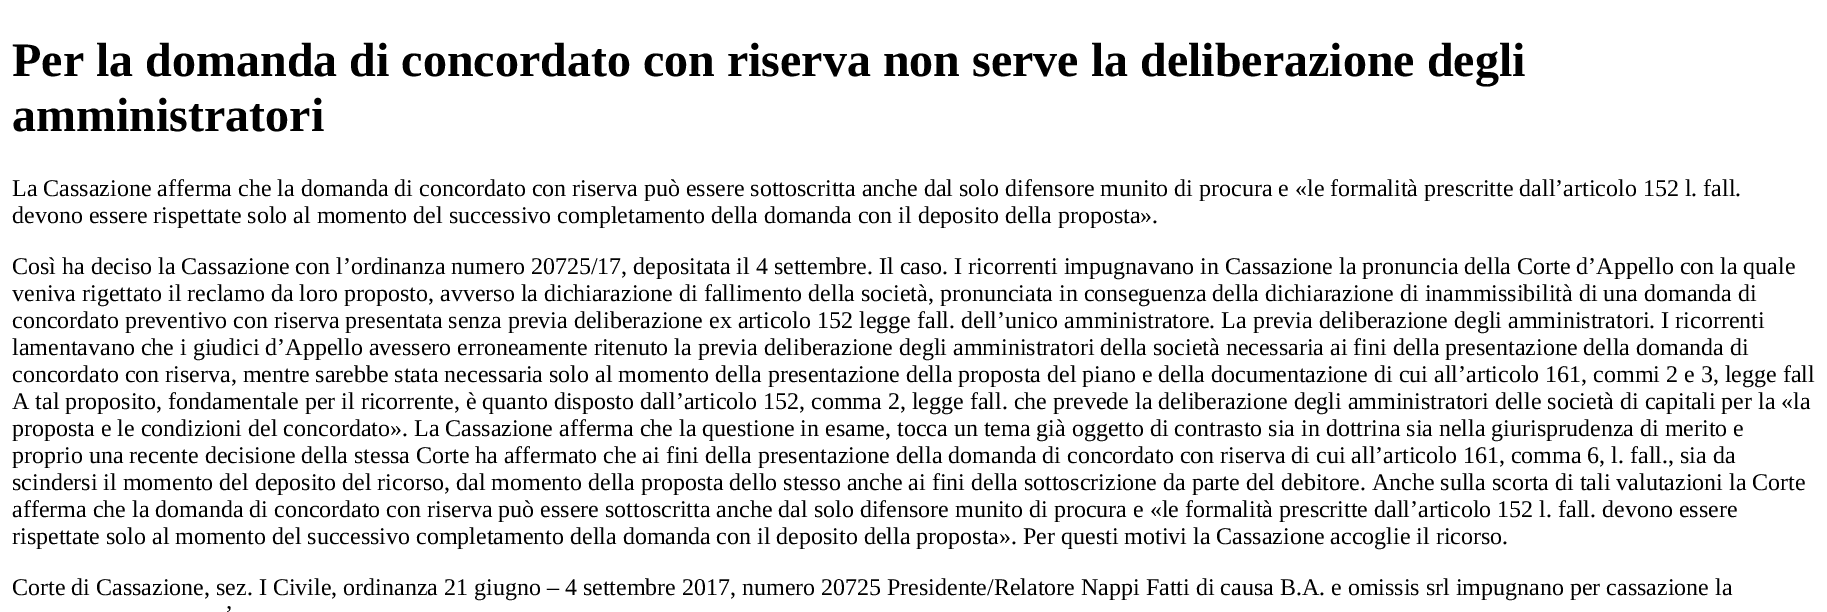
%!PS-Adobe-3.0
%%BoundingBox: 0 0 1827 612
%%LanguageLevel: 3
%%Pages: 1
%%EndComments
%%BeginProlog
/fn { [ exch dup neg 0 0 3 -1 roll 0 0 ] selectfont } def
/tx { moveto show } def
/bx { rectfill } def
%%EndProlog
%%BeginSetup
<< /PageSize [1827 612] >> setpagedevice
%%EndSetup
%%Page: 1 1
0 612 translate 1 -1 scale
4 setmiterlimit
1 setgray
0 0 1827 612 bx
/LiberationSerif-Bold 48 fn
0 setgray
(Per la domanda di concordato con riserva non serve la deliberazione degli) 12 76 tx
(amministratori) 12 131 tx
/LiberationSerif-Regular 24 fn
(La Cassazione afferma che la domanda di concordato con riserva può essere sottoscritta anche dal solo difensore munito di procura e «le formalità prescritte dall’articolo 152 l. fall.) 12 196 tx
(devono essere rispettate solo al momento del successivo completamento della domanda con il deposito della proposta».) 12 223 tx
(Così ha deciso la Cassazione con l’ordinanza numero 20725/17, depositata il 4 settembre. Il caso. I ricorrenti impugnavano in Cassazione la pronuncia della Corte d’Appello con la quale) 12 274 tx
(veniva rigettato il reclamo da loro proposto, avverso la dichiarazione di fallimento della società, pronunciata in conseguenza della dichiarazione di inammissibilità di una domanda di) 12 301 tx
(concordato preventivo con riserva presentata senza previa deliberazione ex articolo 152 legge fall. dell’unico amministratore. La previa deliberazione degli amministratori. I ricorrenti) 12 328 tx
(lamentavano che i giudici d’Appello avessero erroneamente ritenuto la previa deliberazione degli amministratori della società necessaria ai fini della presentazione della domanda di) 12 355 tx
(concordato con riserva, mentre sarebbe stata necessaria solo al momento della presentazione della proposta del piano e della documentazione di cui all’articolo 161, commi 2 e 3, legge fall) 12 382 tx
(A tal proposito, fondamentale per il ricorrente, è quanto disposto dall’articolo 152, comma 2, legge fall. che prevede la deliberazione degli amministratori delle società di capitali per la «la) 12 409 tx
(proposta e le condizioni del concordato». La Cassazione afferma che la questione in esame, tocca un tema già oggetto di contrasto sia in dottrina sia nella giurisprudenza di merito e) 12 436 tx
(proprio una recente decisione della stessa Corte ha affermato che ai fini della presentazione della domanda di concordato con riserva di cui all’articolo 161, comma 6, l. fall., sia da) 12 463 tx
(scindersi il momento del deposito del ricorso, dal momento della proposta dello stesso anche ai fini della sottoscrizione da parte del debitore. Anche sulla scorta di tali valutazioni la Corte) 12 490 tx
(afferma che la domanda di concordato con riserva può essere sottoscritta anche dal solo difensore munito di procura e «le formalità prescritte dall’articolo 152 l. fall. devono essere) 12 517 tx
(rispettate solo al momento del successivo completamento della domanda con il deposito della proposta». Per questi motivi la Cassazione accoglie il ricorso.) 12 544 tx
(Corte di Cassazione, sez. I Civile, ordinanza 21 giugno – 4 settembre 2017, numero 20725 Presidente/Relatore Nappi Fatti di causa B.A. e omissis srl impugnano per cassazione la) 12 595 tx
(’) 225 622 tx
showpage
%%EOF
